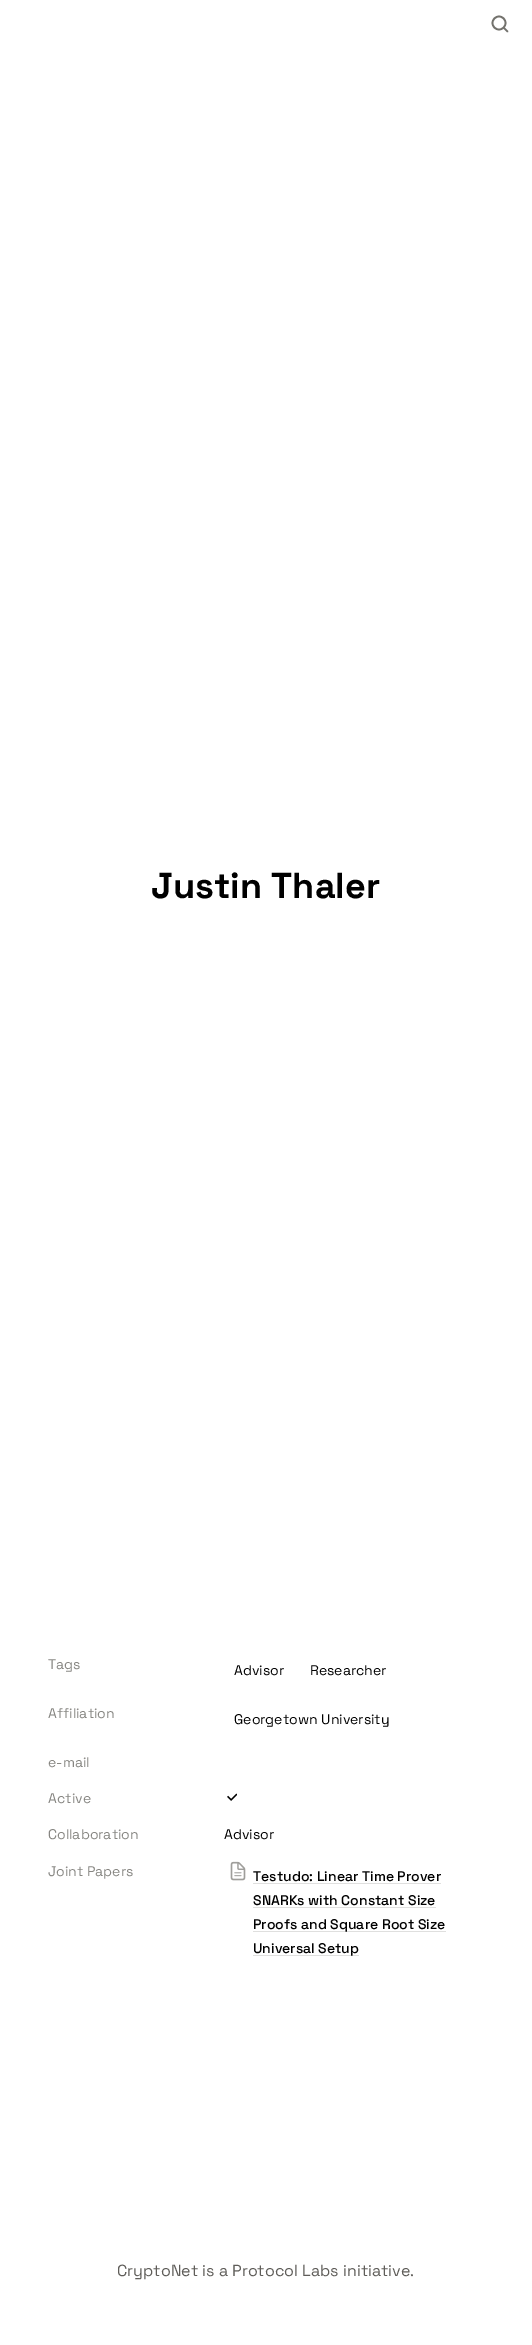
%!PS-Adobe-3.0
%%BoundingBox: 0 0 532 2345
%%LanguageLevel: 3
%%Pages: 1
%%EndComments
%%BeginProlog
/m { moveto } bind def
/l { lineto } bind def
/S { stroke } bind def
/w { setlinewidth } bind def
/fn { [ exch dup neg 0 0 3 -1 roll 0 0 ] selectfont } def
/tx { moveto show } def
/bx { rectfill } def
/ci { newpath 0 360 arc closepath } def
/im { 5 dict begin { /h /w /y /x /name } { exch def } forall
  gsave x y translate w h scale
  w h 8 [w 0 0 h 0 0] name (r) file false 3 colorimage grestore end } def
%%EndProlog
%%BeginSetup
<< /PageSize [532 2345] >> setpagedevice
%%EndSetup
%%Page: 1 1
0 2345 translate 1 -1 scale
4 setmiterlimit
1 setgray
0 0 532 2345 bx
0.451 0.447 0.427 setrgbcolor
1.7 w
499 23 6.5 ci S
1 setlinecap
1 setlinejoin
507.5 31.5 m 504 28 l S
/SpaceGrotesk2-Light 36 fn
0 setgray
(Justin Thaler) 151 898 tx
/SpaceGrotesk-Light 14 fn
0.529 0.525 0.51 setrgbcolor
(Tags) 48 1669 tx
0 setgray
(Advisor) 234 1675 tx
(Researcher) 310 1675 tx
0.529 0.525 0.51 setrgbcolor
(Affiliation) 48 1718 tx
0 setgray
(Georgetown University) 234 1724 tx
0.529 0.525 0.51 setrgbcolor
(e-mail) 48 1767 tx
(Active) 48 1803 tx
(image0.raw) 227 1793 10 8 im
(Collaboration) 48 1839 tx
0 setgray
(Advisor) 224 1839 tx
0.529 0.525 0.51 setrgbcolor
(Joint Papers) 48 1876 tx
(image1.raw) 230 1861 16 20 im
/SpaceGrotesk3-Light 14 fn
0 setgray
(Testudo: Linear Time Prover) 253 1881 tx
0.875 0.875 0.871 setrgbcolor
253 1883 188 1 bx
0 setgray
(SNARKs with Constant Size) 253 1905 tx
0.875 0.875 0.871 setrgbcolor
253 1907 183 1 bx
253 1931 193 1 bx
0 setgray
(Proofs and Square Root Size) 253 1929 tx
0.875 0.875 0.871 setrgbcolor
253 1955 106 1 bx
0 setgray
(Universal Setup) 253 1953 tx
/SpaceGrotesk-Light 16 fn
0.373 0.365 0.349 setrgbcolor
(CryptoNet is a Protocol Labs initiative.) 117 2276 tx
showpage
%%EOF
